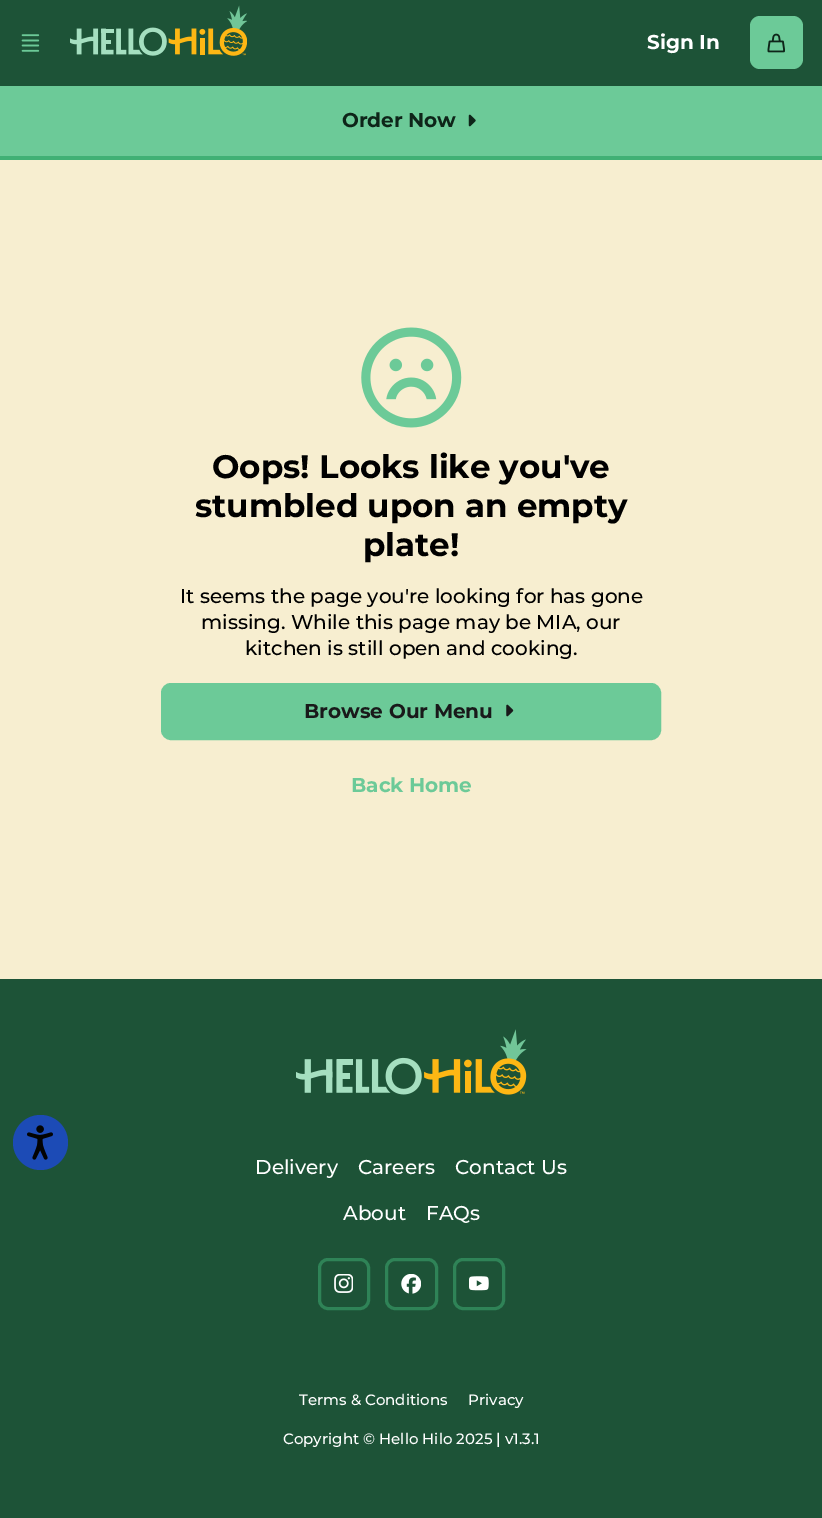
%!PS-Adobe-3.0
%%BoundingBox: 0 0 822 1518
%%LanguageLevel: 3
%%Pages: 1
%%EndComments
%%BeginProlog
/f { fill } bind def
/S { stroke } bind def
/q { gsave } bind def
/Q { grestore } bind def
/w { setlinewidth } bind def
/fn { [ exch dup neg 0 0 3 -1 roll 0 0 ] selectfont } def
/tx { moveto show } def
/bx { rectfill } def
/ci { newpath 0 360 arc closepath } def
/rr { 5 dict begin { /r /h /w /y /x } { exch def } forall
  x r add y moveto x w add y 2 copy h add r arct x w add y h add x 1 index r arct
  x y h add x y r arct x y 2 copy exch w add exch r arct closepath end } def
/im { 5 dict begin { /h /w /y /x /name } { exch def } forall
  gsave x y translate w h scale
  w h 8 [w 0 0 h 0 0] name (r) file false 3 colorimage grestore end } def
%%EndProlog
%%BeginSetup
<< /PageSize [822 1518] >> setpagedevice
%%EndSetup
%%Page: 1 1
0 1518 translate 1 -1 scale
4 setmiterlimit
0.969 0.933 0.816 setrgbcolor
0 0 822 1518 bx
0.114 0.325 0.216 setrgbcolor
0 979 822 539 bx
0.11 0.294 0.714 setrgbcolor
40.5 1142.5 27.5 ci f
(image0.raw) 27 1125 26 35 im
0.114 0.325 0.216 setrgbcolor
0 0 822 86 bx
(image1.raw) 21 34 19 18 im
(image2.raw) 70 5 177 51 im
/Montserrat-Bold 20 fn
1 setgray
(Sign In) 647 49 tx
0.424 0.792 0.596 setrgbcolor
750 16 53 53 10 rr f
(image3.raw) 767 33 18 20 im
0 86 822 70 bx
0.251 0.69 0.459 setrgbcolor
0 156 822 4 bx
0.055 0.145 0.098 setrgbcolor
(Order Now) 342 127 tx
(image4.raw) 468 114 8 13 im
(image5.raw) 361 327 101 101 im
/Montserrat-Bold 32.5 fn
0 setgray
(Oops! Looks like you've) 212 478 tx
(stumbled upon an empty) 195 517 tx
(plate!) 363 556 tx
/Montserrat-Medium 20 fn
(It seems the page you're looking for has gone) 180 603 tx
(missing. While this page may be MIA, our) 201 629 tx
(kitchen is still open and cooking.) 245 655 tx
0.424 0.792 0.596 setrgbcolor
162.5 684.5 497 54 8.5 rr q f Q
3 w
S
/Montserrat-Bold 20 fn
0.098 0.098 0.102 setrgbcolor
(Browse Our Menu) 304 718 tx
(image6.raw) 506 704 8 13 im
0.424 0.792 0.596 setrgbcolor
(Back Home) 351 792 tx
(image7.raw) 296 1029 231 66 im
/Montserrat-Medium 20 fn
1 setgray
(Delivery) 255 1174 tx
(Careers) 358 1174 tx
(Contact Us) 455 1174 tx
(About) 343 1220 tx
(FAQs) 426 1220 tx
0.184 0.514 0.341 setrgbcolor
319.5 1259.5 49 49 8.5 rr S
(image8.raw) 334 1274 19 19 im
386.5 1259.5 50 49 8.5 rr S
(image9.raw) 401 1274 20 20 im
454.5 1259.5 49 49 8.5 rr S
(image10.raw) 469 1276 20 15 im
/Montserrat-Medium 15 fn
1 setgray
(Terms & Conditions) 299 1405 tx
(Privacy) 468 1405 tx
(Copyright © Hello Hilo 2025 | v1.3.1) 283 1444 tx
showpage
%%EOF
